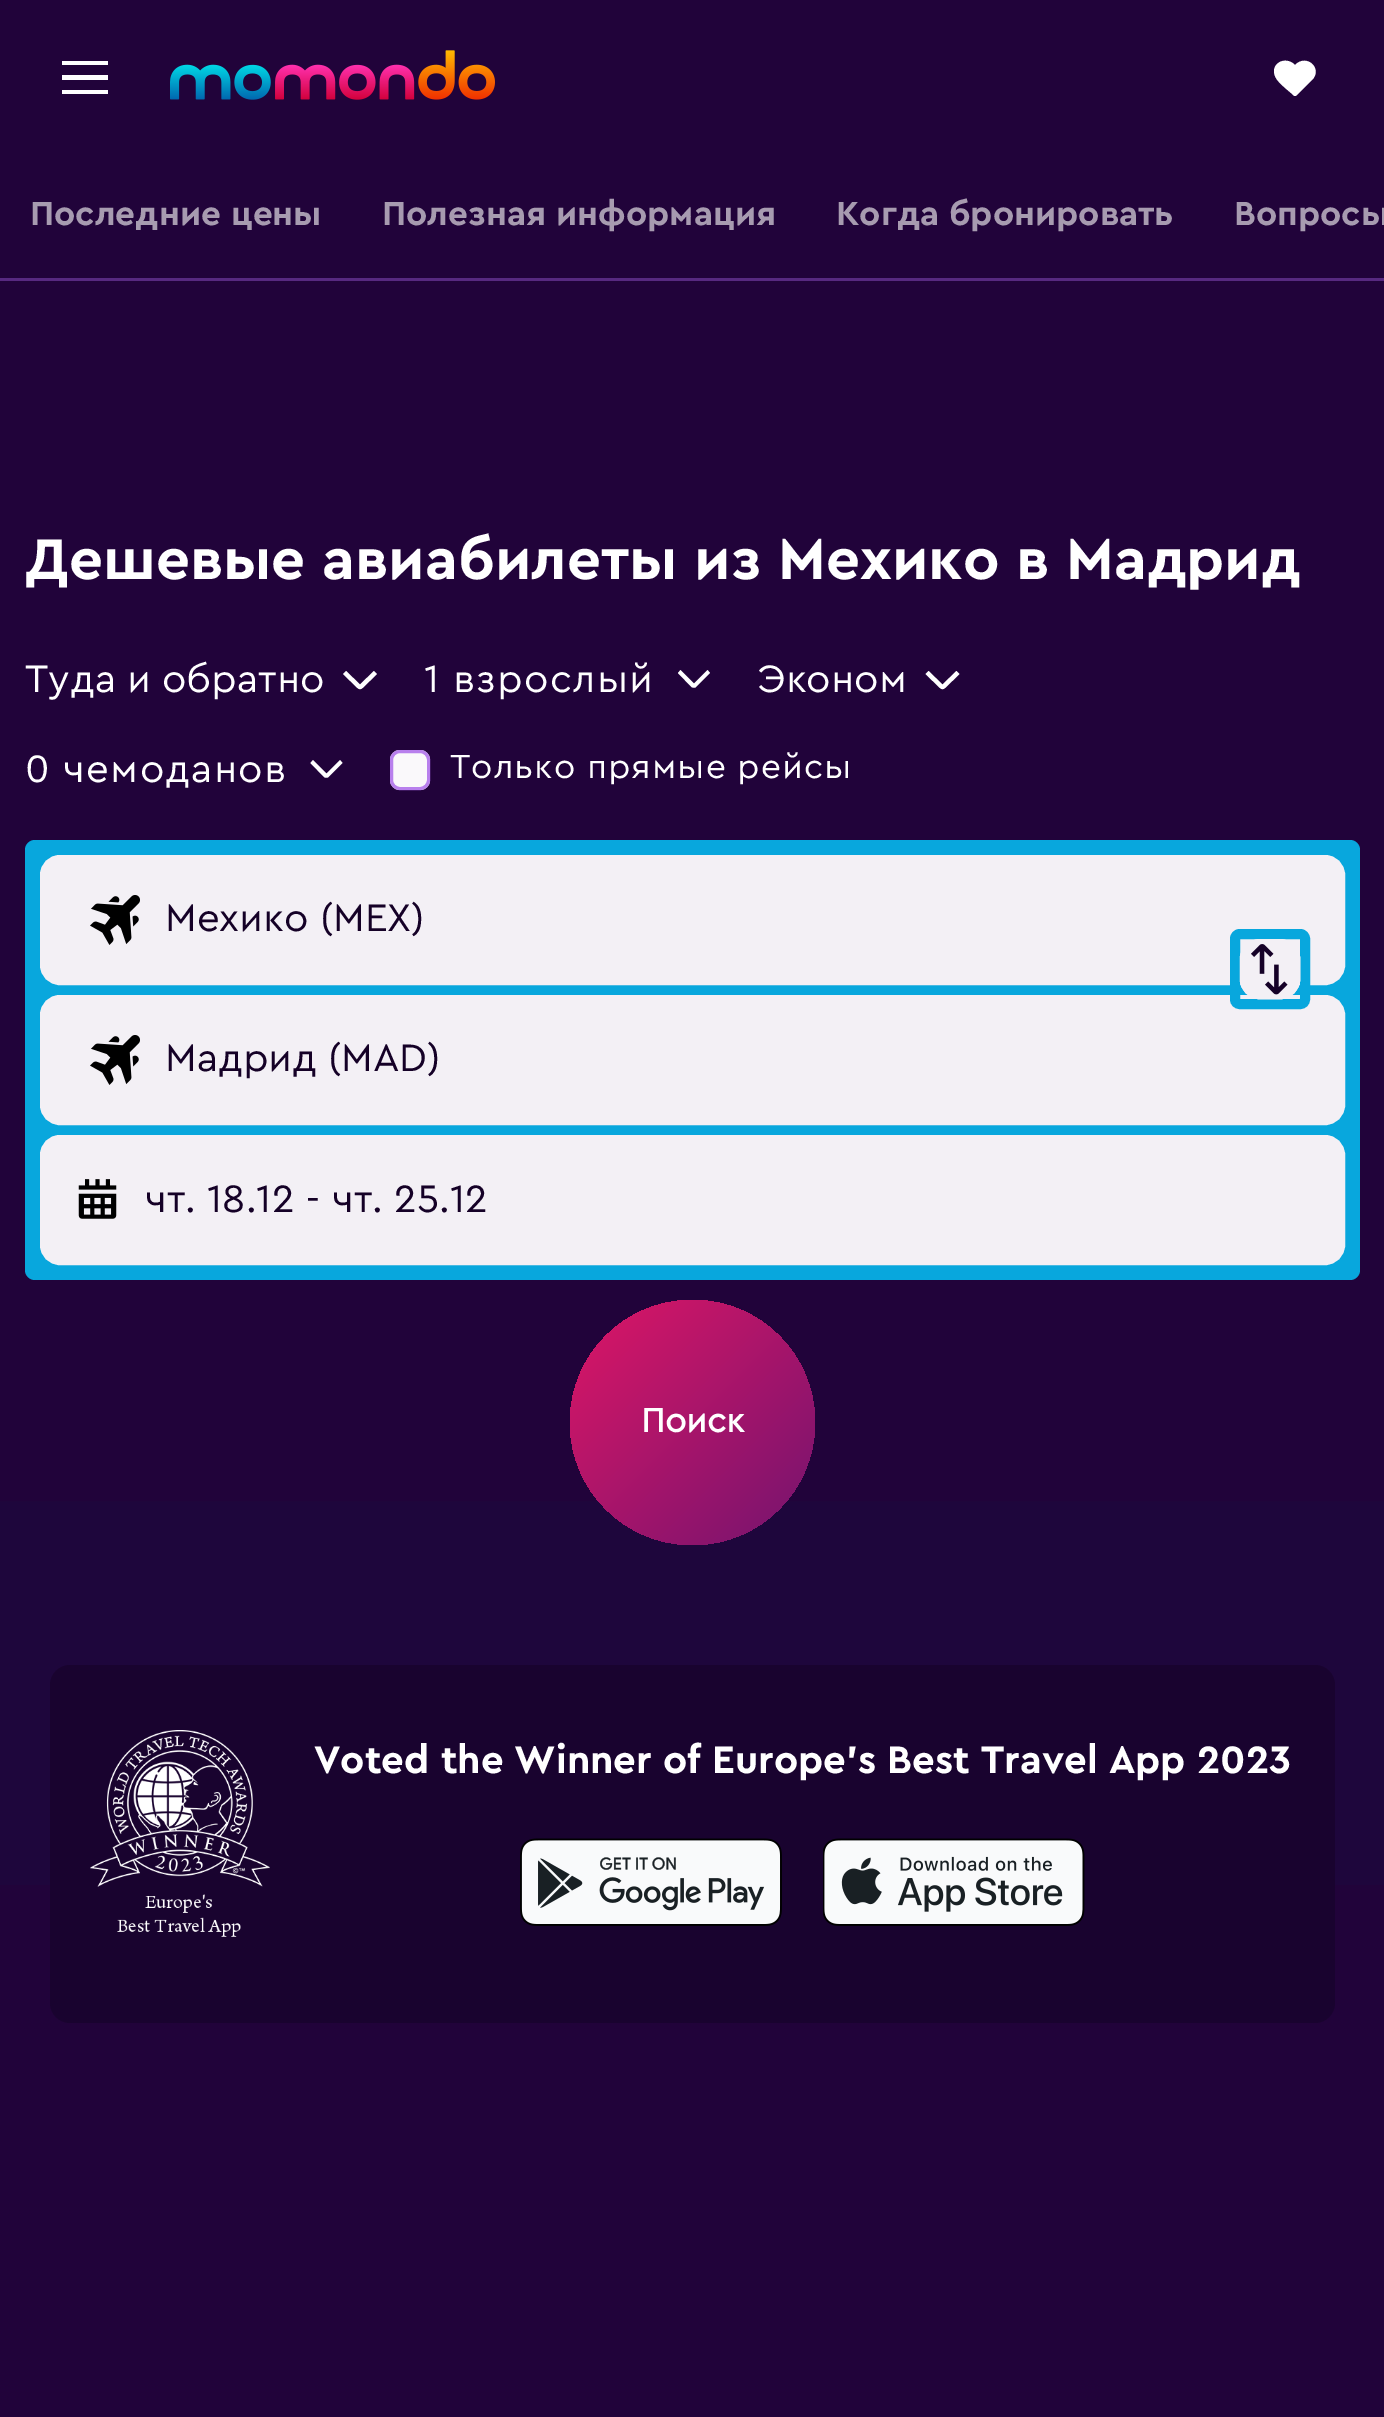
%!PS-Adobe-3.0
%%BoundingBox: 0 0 1384 2417
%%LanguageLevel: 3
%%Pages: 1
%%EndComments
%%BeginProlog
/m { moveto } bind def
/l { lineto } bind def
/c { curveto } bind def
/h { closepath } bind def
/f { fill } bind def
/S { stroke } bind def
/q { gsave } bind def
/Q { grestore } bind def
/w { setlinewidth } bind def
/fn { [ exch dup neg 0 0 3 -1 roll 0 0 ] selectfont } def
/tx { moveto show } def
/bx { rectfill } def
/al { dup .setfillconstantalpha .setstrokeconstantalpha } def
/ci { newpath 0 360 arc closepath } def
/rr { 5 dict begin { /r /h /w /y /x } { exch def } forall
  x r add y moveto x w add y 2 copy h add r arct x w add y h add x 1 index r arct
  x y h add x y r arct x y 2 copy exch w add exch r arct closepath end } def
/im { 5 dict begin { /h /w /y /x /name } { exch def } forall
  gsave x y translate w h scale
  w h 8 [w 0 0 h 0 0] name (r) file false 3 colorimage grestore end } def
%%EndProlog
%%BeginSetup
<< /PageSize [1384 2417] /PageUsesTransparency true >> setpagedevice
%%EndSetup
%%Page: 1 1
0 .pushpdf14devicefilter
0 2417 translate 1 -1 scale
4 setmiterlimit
0.129 0.012 0.227 setrgbcolor
0 0 1384 2417 bx
1 setgray
108 65 m 62 65 l 62 61 l 108 61 l h 108 90 m 62 90 l 62 94 l 108 94 l h 108 75 m 62 75 l 62 80 l 108 80 l h f
(image0.raw) 170 50 325 50 im
1312 80 m 1299 93 l 1295 97 1295 97 1291 93 c 1284 87 l 1281 84 1277 81 1275 76 c 1270 64 1285 55 1295 65 c 1307 53 1323 69 1312 80 c h f
0.4 al
0.655 0.384 0.918 setrgbcolor
0 278 1384 3 bx
/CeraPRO-Bold 35 fn
1 al
0.655 0.608 0.69 setrgbcolor
(Последние цены) 30 225 tx
(Полезная информация) 382 225 tx
(Когда бронировать) 836 225 tx
(Вопросы) 1234 225 tx
q 0 1501 m 1384 1501 l 1384 1885 l 0 1885 l h clip newpath
<< /ShadingType 2 /ColorSpace /DeviceRGB /Coords [693 2063 693 280] /Extend [true true] /Function << /FunctionType 3 /Domain [0 1] /Functions [<< /FunctionType 2 /Domain [0 1] /C0 [0.129 0.012 0.227] /C1 [0.118 0.024 0.235] /N 1 >> << /FunctionType 2 /Domain [0 1] /C0 [0.118 0.024 0.235] /C1 [0.118 0.024 0.235] /N 1 >> << /FunctionType 2 /Domain [0 1] /C0 [0.118 0.024 0.235] /C1 [0.122 0.02 0.231] /N 1 >> << /FunctionType 2 /Domain [0 1] /C0 [0.122 0.02 0.231] /C1 [0.122 0.02 0.227] /N 1 >> << /FunctionType 2 /Domain [0 1] /C0 [0.122 0.02 0.227] /C1 [0.125 0.016 0.227] /N 1 >> << /FunctionType 2 /Domain [0 1] /C0 [0.125 0.016 0.227] /C1 [0.125 0.012 0.224] /N 1 >> << /FunctionType 2 /Domain [0 1] /C0 [0.125 0.012 0.224] /C1 [0.125 0.012 0.224] /N 1 >>] /Bounds [0.12 0.25 0.38 0.5 0.62 0.75] /Encode [0 1 0 1 0 1 0 1 0 1 0 1 0 1] >> >> shfill Q
/CeraPRO-Bold 60 fn
1 setgray
(Дешевые авиабилеты из Мехико в Мадрид) 25 579 tx
/CeraPRO-Regular 40 fn
(Туда и обратно) 25 692 tx
377 674 m 362.5 688 l 361 689.5 359 689.5 357.5 688 c 343 674 l 346 671 l 360 684.5 l 374 671 l h f
424 692 m 1.25 0 (1 взрослый) ashow
710 673 m 696 687 l 695 688 693 688 691.5 687 c 678 673 l 680.5 670 l 694 683.5 l 707.5 670 l h f
(Эконом) 757 692 tx
959.5 674 m 945 688 l 943.5 689.5 941.5 689.5 940 688 c 925.5 674 l 928.5 671 l 942.5 684.5 l 956.5 671 l h f
25 782 m 1.25 0 (0 чемоданов) ashow
342.5 763 m 328.5 777 l 327.5 778 325.5 778 324 777 c 310.5 763 l 313 760 l 326.5 773.5 l 340 760 l h f
0.98 0.976 0.984 setrgbcolor
390 750 40 40 10 rr f
0.8 al
0.655 0.384 0.918 setrgbcolor
3 w
391.5 751.5 37 37 8.5 rr S
/CeraPRO-Regular 35 fn
1 al
1 setgray
450 778 m 1 0 (Только прямые рейсы) ashow
0.031 0.655 0.867 setrgbcolor
25 840 1335 440 10 rr f
0.953 0.941 0.961 setrgbcolor
41.5 856.5 1302 127 18.5 rr q f Q
S
(image1.raw) 90 895 50 50 im
/CeraPRO-Regular 40 fn
0.082 0.004 0.153 setrgbcolor
(Мехико \(MEX\)) 165 931 tx
0.953 0.941 0.961 setrgbcolor
41.5 996.5 1302 127 18.5 rr q f Q
S
0.031 0.655 0.867 setrgbcolor
10 w
1305 939 m 1305 999 l 1305 1002 1303 1004 1300 1004 c 1240 1004 l 1237 1004 1235 1002 1235 999 c 1235 939 l 1235 936.5 1237 934 1240 934 c 1300 934 l 1303 934 1305 936.5 1305 939 c h S
0.953 0.941 0.961 setrgbcolor
1300 959 m 1300 979 l 1300 990 1291 999 1280 999 c 1260 999 l 1249 999 1240 990 1240 979 c 1240 959 l 1240 948 1249 939 1260 939 c 1280 939 l 1291 939 1300 948 1300 959 c h f
2.5 w
1299 959 m 1299 979 l 1299 989.5 1290.5 998 1280 998 c 1260 998 l 1249.5 998 1241 989.5 1241 979 c 1241 959 l 1241 949 1249.5 940.5 1260 940.5 c 1280 940.5 l 1290.5 940.5 1299 949 1299 959 c h S
(image2.raw) 1251 944 37 51 im
(image1.raw) 90 1035 50 50 im
0.082 0.004 0.153 setrgbcolor
(Мадрид \(MAD\)) 165 1071 tx
0.953 0.941 0.961 setrgbcolor
41.5 1136.5 1302 127 18.5 rr q f Q
3 w
S
(image3.raw) 78 1179 39 40 im
0.082 0.004 0.153 setrgbcolor
(чт. 18.12) 145 1212 tx
(-) 306 1212 tx
(чт. 25.12) 332 1212 tx
q 692.5 1422.5 122.5 ci clip newpath
<< /ShadingType 2 /ColorSpace /DeviceRGB /Coords [570 1300 815 1545] /Extend [true true] /Function << /FunctionType 2 /Domain [0 1] /C0 [0.871 0.086 0.4] /C1 [0.451 0.078 0.435] /N 1 >> >> shfill Q
/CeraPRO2-Bold 35 fn
1 setgray
(Поиск) 641 1432 tx
0.098 0.012 0.184 setrgbcolor
50 1665 1285 358 20 rr f
(image4.raw) 90 1730 180 207 im
/CeraPRO-Bold 40 fn
1 setgray
(Voted the Winner of Europe's Best Travel App 2023) 314 1773 tx
(image5.raw) 520 1838 262 88 im
(image6.raw) 823 1838 262 88 im
.poppdf14devicefilter showpage
%%EOF
